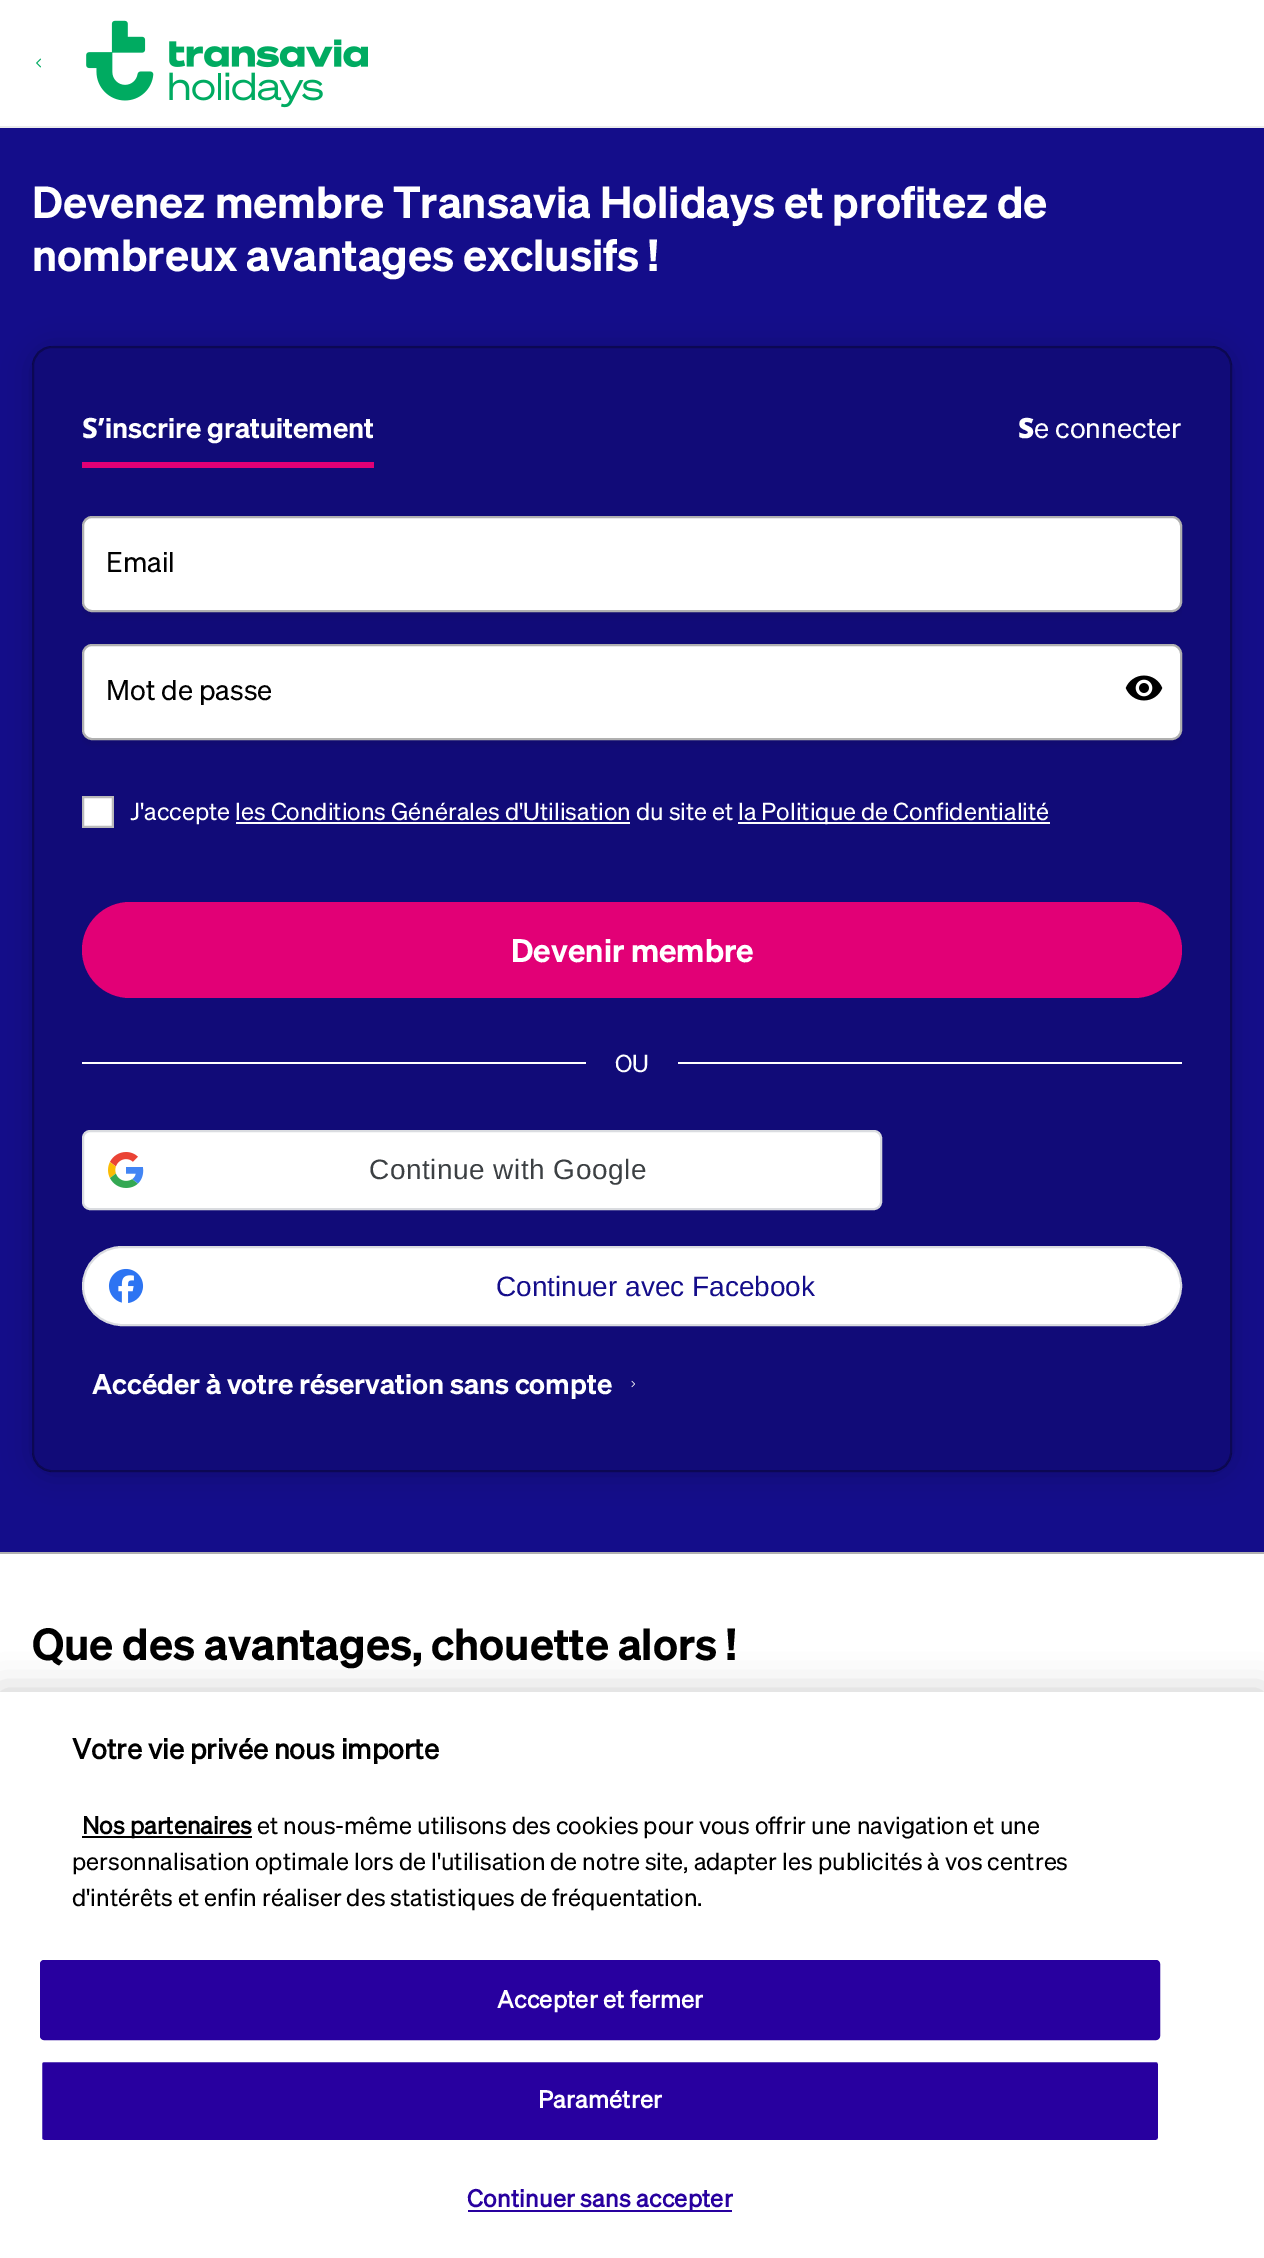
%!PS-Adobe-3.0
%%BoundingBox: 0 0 1264 2258
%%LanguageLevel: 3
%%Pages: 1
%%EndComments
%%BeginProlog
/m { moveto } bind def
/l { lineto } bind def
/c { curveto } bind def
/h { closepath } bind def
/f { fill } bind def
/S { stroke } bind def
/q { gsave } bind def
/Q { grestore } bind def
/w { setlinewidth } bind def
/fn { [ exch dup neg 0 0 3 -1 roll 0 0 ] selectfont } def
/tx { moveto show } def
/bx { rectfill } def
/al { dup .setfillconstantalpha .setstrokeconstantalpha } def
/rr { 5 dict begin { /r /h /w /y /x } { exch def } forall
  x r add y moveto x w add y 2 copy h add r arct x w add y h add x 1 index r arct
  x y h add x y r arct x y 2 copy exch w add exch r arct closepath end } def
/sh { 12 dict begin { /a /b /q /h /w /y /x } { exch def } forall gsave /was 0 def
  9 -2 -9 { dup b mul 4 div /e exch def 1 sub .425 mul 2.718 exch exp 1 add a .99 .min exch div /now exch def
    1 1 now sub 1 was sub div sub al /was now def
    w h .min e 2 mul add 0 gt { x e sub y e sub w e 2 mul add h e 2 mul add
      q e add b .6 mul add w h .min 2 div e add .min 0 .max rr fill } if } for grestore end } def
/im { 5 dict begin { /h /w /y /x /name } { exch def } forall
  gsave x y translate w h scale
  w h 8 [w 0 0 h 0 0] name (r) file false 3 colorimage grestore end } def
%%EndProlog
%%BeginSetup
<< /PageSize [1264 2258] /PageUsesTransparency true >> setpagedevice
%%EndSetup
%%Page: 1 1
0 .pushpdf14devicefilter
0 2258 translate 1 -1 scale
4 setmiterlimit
1 setgray
0 0 1264 2258 bx
0.922 setgray
0 126 1264 2 bx
(image0.raw) 36 58 5 10 im
(image1.raw) 86 20 282 88 im
0.078 0.051 0.541 setrgbcolor
0 128 1264 1424 bx
/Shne-SemiBold 44 fn
1 setgray
(Devenez membre Transavia Holidays et profitez de) 32 218 tx
(nombreux avantages exclusifs !) 32 271 tx
q
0 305 m 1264 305 l 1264 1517 l 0 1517 l h 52 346 m 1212 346 l 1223 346 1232 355 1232 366 c 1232 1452 l 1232 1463 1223 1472 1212 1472 c 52 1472 l 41 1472 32 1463 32 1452 c 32 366 l 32 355 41 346 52 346 c h eoclip newpath
0 setgray
32 348 1200 1126 20 14 0.2 sh
Q
0.13 al
0 setgray
32 346 1200 1126 20 rr f
0.3 al
2 w
33 347 1198 1124 19 rr S
1 al
0.886 0 0.463 setrgbcolor
82 462 292 6 bx
/NotoSans-ExtraBold 28 fn
1 setgray
(S’) 82 438 tx
/Shne-SemiBold 28 fn
(inscrire gratuitement) 105 438 tx
/NotoSans-Black 28 fn
(S) 1018 438 tx
/Shne-Regular 28 fn
(e connecter) 1034 438 tx
q
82 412 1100 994 rectclip
0 setgray
82 520 1100 96 10 4 0.1 sh
Q
83 517 1098 94 9 rr q f Q
0.69 setgray
S
0 setgray
(Email) 106 572 tx
q
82 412 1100 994 rectclip
82 648 1100 96 10 4 0.1 sh
Q
1 setgray
83 645 1098 94 9 rr q f Q
0.69 setgray
S
0 setgray
(Mot de passe) 106 700 tx
(image2.raw) 1125 675 38 26 im
1 setgray
84 798 28 28 bx
q
82 796 32 32 rectclip
0.729 setgray
2.3 w
83 797 m 113 797 l 113 827 l 83 827 l h S
Q
/Shne-Regular 24 fn
(J'accepte les Conditions Générales d'Utilisation) 130 820 tx
(du site et) 636 820 tx
738 822 312 2 bx
(la Politique de Confidentialité) 738 820 tx
236 822 394 2 bx
0.886 0 0.463 setrgbcolor
82 902 1100 96 48 rr f
/Shne-SemiBold 32 fn
1 setgray
(Devenir membre) 511 962 tx
82 1062 504 2 bx
/Shne-Regular 24 fn
(OU) 615 1072 tx
678 1062 504 2 bx
83 1131 798 78 7 rr q f Q
0.855 0.863 0.878 setrgbcolor
S
(image3.raw) 108 1152 36 36 im
/LiberationSans-Regular 28 fn
0.235 0.251 0.263 setrgbcolor
369 1179 m 0.5 0 (Continue with Google) ashow
1 setgray
83 1247 1098 78 39 rr q f Q
0.855 0.863 0.878 setrgbcolor
S
(image4.raw) 108 1268 36 35 im
0.078 0.051 0.541 setrgbcolor
(Continuer avec Facebook) 496 1296 tx
/Shne-SemiBold 28 fn
1 setgray
(Accéder à votre réservation sans compte) 92 1394 tx
(image5.raw) 631 1380 4 8 im
0.69 setgray
0 1552 1264 2 bx
/Shne-SemiBold 44 fn
0 setgray
(Que des avantages, chouette alors !) 32 1660 tx
0 1692 1264 566 0 18 0.2 sh
1 setgray
0 1692 1264 566 bx
/Shne-Bold 28 fn
0 setgray
(Votre vie privée nous importe) 72 1759 tx
82 1836 170 2 bx
/Shne-Bold 24 fn
(Nos partenaires) 82 1834 tx
/Shne-Regular 24 fn
(et nous-même utilisons des cookies pour vous offrir une navigation et une) 257 1834 tx
(personnalisation optimale lors de l'utilisation de notre site, adapter les publicités à vos centres) 72 1870 tx
(d'intérêts et enfin réaliser des statistiques de fréquentation.) 72 1906 tx
0.157 0 0.624 setrgbcolor
41 1961 1118 78 3 rr q f Q
S
/Shne-Bold 24 fn
1 setgray
497 2008 m 0.25 0 (Accepter et fermer) ashow
0.157 0 0.624 setrgbcolor
41 2061 1118 80 3 rr q f Q
1 setgray
S
538 2108 m 0.25 0 (Paramétrer) ashow
0.157 0 0.624 setrgbcolor
468 2210 264 2 bx
467 2207 m 0.25 0 (Continuer sans accepter) ashow
.poppdf14devicefilter showpage
%%EOF
